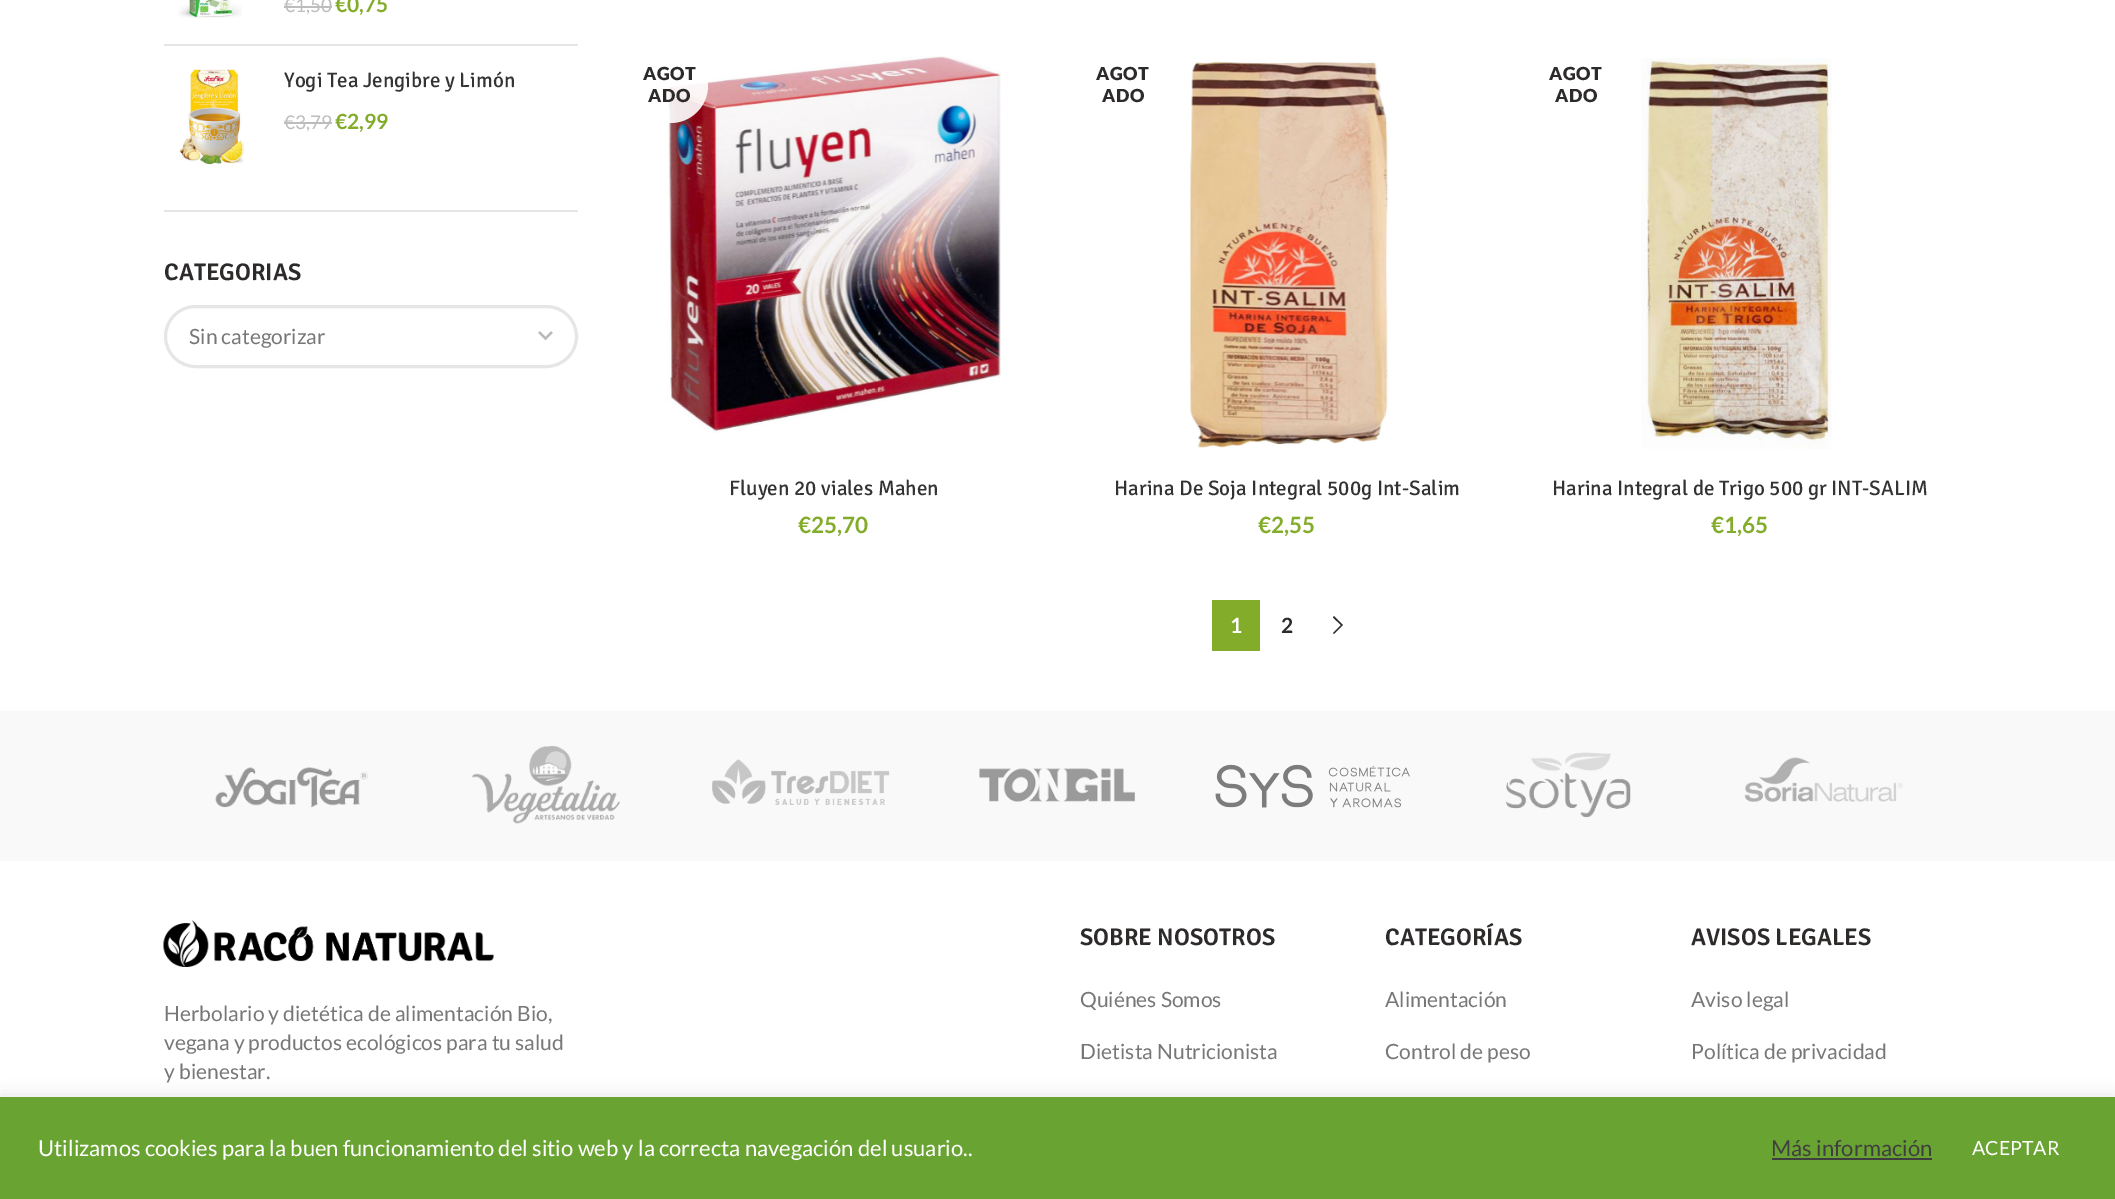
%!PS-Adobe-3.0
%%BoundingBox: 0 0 2115 1199
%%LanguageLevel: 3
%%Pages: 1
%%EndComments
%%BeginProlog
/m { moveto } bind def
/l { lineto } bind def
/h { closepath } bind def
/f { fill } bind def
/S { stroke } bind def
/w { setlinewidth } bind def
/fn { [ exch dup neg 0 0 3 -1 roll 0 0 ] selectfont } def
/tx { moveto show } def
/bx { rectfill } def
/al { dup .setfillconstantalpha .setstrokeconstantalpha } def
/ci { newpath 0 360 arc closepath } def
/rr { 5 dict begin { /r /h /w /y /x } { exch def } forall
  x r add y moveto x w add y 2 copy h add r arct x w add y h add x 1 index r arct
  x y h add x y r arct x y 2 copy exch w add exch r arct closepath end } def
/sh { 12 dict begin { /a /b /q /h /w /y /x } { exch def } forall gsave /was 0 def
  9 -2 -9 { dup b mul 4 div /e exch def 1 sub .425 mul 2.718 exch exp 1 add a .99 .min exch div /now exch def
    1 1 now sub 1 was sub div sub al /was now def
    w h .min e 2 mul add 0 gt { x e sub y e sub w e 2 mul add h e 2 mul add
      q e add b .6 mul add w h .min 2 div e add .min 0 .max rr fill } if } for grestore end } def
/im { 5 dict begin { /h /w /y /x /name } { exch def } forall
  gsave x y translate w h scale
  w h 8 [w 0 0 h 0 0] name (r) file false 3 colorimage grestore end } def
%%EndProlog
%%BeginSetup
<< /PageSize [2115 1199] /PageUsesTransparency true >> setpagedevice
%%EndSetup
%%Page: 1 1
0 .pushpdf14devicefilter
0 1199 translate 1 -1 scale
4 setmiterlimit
1 setgray
0 0 2115 1199 bx
0.902 setgray
164 210 414 2 bx
164 44 414 2 bx
(image0.raw) 178 0 64 18 im
/Lato-Regular 19 fn
0.741 setgray
(€1,50) 284 12 tx
284 6 48 2 bx
/Lato-Bold 21 fn
0.514 0.675 0.169 setrgbcolor
(€0,75) 335 12 tx
(image1.raw) 179 69 65 96 im
/Signika-Regular 21 fn
0.2 setgray
(Yogi Tea Jengibre y Limón) 284 87 tx
/Lato-Regular 19 fn
0.741 setgray
(€3,79) 284 129 tx
284 122 48 2 bx
/Lato-Bold 21 fn
0.514 0.675 0.169 setrgbcolor
(€2,99) 335 129 tx
/Signika-SemiBold 24 fn
0.176 0.165 0.165 setrgbcolor
(CATEGORIAS) 164 280 tx
0.733 setgray
2.2 w
539 332 m 545.5 338.5 l 552 332 l S
0.902 setgray
3 w
165.5 306.5 411 60 30 rr S
/Lato-Regular 21 fn
0.467 setgray
(Sin categorizar) 189 344 tx
(image2.raw) 667 56 334 377 im
0.9 al
1 setgray
670.5 85.5 37.5 ci f
/Lato-Black 18 fn
1 al
0.176 0.165 0.165 setrgbcolor
643 80 m 0.5 0 (AGOT) ashow
648 102 m 0.5 0 (ADO) ashow
/Signika-Regular 21 fn
0.2 setgray
(Fluyen 20 viales Mahen) 729 495 tx
/Lato-Bold 22.5 fn
0.514 0.675 0.169 setrgbcolor
(€25,70) 798 533 tx
/Lato-Black 18 fn
0.176 0.165 0.165 setrgbcolor
1096 80 m 0.5 0 (AGOT) ashow
1102 102 m 0.5 0 (ADO) ashow
(image3.raw) 1190 61 198 387 im
/Signika-Regular 21 fn
0.2 setgray
(Harina De Soja Integral 500g Int-Salim) 1114 495 tx
/Lato-Bold 22.5 fn
0.514 0.675 0.169 setrgbcolor
(€2,55) 1258 533 tx
/Lato-Black 18 fn
0.176 0.165 0.165 setrgbcolor
1549 80 m 0.5 0 (AGOT) ashow
1555 102 m 0.5 0 (ADO) ashow
(image4.raw) 1641 58 191 391 im
/Signika-Regular 21 fn
0.2 setgray
(Harina Integral de Trigo 500 gr INT-SALIM) 1552 495 tx
/Lato-Bold 22.5 fn
0.514 0.675 0.169 setrgbcolor
(€1,65) 1711 533 tx
1212 600 48 51 bx
/Lato-Bold 21 fn
1 setgray
(1) 1230 633 tx
0.176 0.165 0.165 setrgbcolor
(2) 1281 633 tx
1334 616 m 1343 625 l 1334 634 l 1333 633 l 1341 625 l 1333 617.5 l h f
0.976 setgray
0 711 2115 150 bx
(image5.raw) 215 767 153 41 im
(image6.raw) 472 746 148 78 im
(image7.raw) 712 759 178 46 im
(image8.raw) 979 768 156 34 im
(image9.raw) 1215 764 195 44 im
(image10.raw) 1506 752 125 66 im
(image11.raw) 1744 757 159 45 im
(image12.raw) 163 920 331 47 im
/Lato-Regular 21 fn
0.467 setgray
(Herbolario y dietética de alimentación Bio,) 164 1021 tx
(vegana y productos ecológicos para tu salud) 164 1050 tx
(y bienestar.) 164 1079 tx
/Signika-SemiBold 24 fn
0.176 0.165 0.165 setrgbcolor
(SOBRE NOSOTROS) 1080 945 tx
/Lato-Regular 21 fn
0.467 setgray
(Quiénes Somos) 1080 1007 tx
(Dietista Nutricionista) 1080 1059 tx
/Signika-SemiBold 24 fn
0.176 0.165 0.165 setrgbcolor
(CATEGORÍAS) 1385 945 tx
/Lato-Regular 21 fn
0.467 setgray
(Alimentación) 1385 1007 tx
(Control de peso) 1385 1059 tx
/Signika-SemiBold 24 fn
0.176 0.165 0.165 setrgbcolor
(AVISOS LEGALES) 1691 945 tx
/Lato-Regular 21 fn
0.467 setgray
(Aviso legal) 1691 1007 tx
(Política de privacidad) 1691 1059 tx
0.675 0.671 0.671 setrgbcolor
0 1095 2115 104 0 7.5 0.3 sh
0.412 0.639 0.196 setrgbcolor
0 1097 2115 102 bx
/Lato-Regular 22 fn
1 setgray
(Utilizamos cookies para la buen funcionamiento del sitio web y la correcta navegación del usuario..) 38 1156 tx
0.247 setgray
(Más información) 1771 1156 tx
1772 1158 160 2 bx
/Lato-Regular 19.5 fn
1 setgray
(ACEPTAR) 1972 1155 tx
.poppdf14devicefilter showpage
%%EOF
